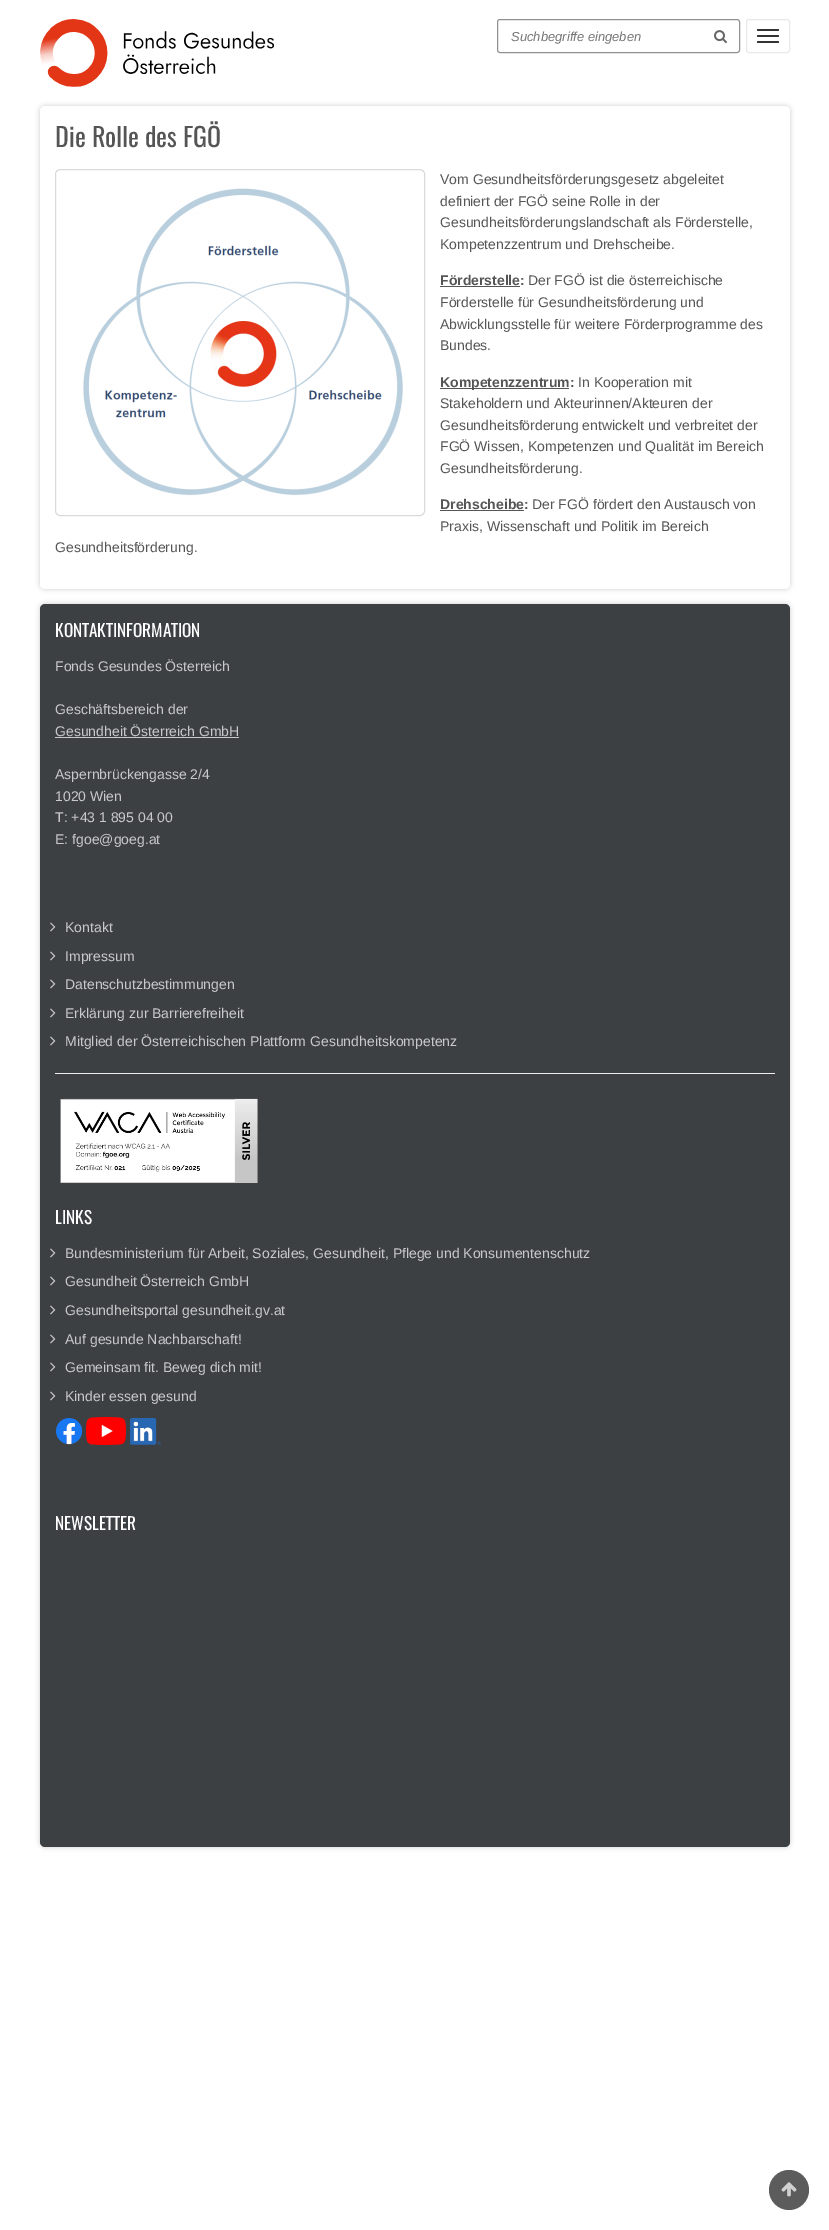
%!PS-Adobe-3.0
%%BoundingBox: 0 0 829 2230
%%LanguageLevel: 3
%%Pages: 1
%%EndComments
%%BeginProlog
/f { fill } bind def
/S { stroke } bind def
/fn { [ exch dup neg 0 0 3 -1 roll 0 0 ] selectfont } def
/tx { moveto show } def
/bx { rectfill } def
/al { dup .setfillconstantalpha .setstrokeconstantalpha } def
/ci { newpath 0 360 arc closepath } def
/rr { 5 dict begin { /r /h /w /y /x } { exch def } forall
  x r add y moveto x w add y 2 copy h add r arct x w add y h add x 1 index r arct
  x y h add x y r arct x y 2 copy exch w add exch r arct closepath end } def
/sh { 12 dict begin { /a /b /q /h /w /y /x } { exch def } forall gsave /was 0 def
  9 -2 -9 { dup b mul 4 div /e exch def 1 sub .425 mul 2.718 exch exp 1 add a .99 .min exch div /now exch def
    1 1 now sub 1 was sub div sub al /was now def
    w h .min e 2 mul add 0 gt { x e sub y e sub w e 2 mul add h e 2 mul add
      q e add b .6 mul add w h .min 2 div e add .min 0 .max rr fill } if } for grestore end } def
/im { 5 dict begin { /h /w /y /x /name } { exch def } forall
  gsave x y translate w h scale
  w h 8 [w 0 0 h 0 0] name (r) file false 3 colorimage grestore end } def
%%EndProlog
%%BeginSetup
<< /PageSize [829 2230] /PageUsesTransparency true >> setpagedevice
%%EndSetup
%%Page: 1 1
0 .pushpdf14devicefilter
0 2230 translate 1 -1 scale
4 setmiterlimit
1 setgray
0 0 829 2230 bx
(image0.raw) 40 19 234 68 im
0.569 setgray
497.5 19.5 242 33 2.5 rr S
/LiberationSans-Italic 13 fn
0.459 setgray
(Suchbegriffe eingeben) 511 41 tx
(image1.raw) 714 30 13 13 im
0.906 0.91 0.914 setrgbcolor
746.5 19.5 43 33 2.5 rr S
0.2 setgray
757 29 22 2 1 rr f
757 35 22 2 1 rr f
757 41 22 2 1 rr f
0.8 setgray
40 106 750 483 5 2.5 1 sh
1 setgray
40 106 750 483 5 rr f
/Oswald-Regular 26 fn
0.333 setgray
(Die Rolle des FGÖ) 55 147 tx
0.855 setgray
55.5 169.5 369 346 4.5 rr S
(image2.raw) 83 188 320 308 im
/LiberationSans-Regular 14 fn
0.333 setgray
(Vom Gesundheitsförderungsgesetz abgeleitet) 440 184 tx
(definiert der FGÖ seine Rolle in der) 440 206 tx
(Gesundheitsförderungslandschaft als Förderstelle,) 440 227 tx
(Kompetenzzentrum und Drehscheibe.) 440 249 tx
/LiberationSans-Bold 14 fn
(Förderstelle:) 440 285 tx
440 286 80 1 bx
/LiberationSans-Regular 14 fn
(Der FGÖ ist die österreichische) 528 285 tx
(Förderstelle für Gesundheitsförderung und) 440 307 tx
(Abwicklungsstelle für weitere Förderprogramme des) 440 329 tx
(Bundes.) 440 350 tx
440 388 129 1 bx
/LiberationSans-Bold 14 fn
(Kompetenzzentrum:) 440 387 tx
/LiberationSans-Regular 14 fn
(In Kooperation mit) 578 387 tx
(Stakeholdern und Akteurinnen/Akteuren der) 440 408 tx
(Gesundheitsförderung entwickelt und verbreitet der) 440 430 tx
(FGÖ Wissen, Kompetenzen und Qualität im Bereich) 440 451 tx
(Gesundheitsförderung.) 440 473 tx
/LiberationSans-Bold 14 fn
(Drehscheibe:) 440 509 tx
440 510 84 1 bx
/LiberationSans-Regular 14 fn
(Der FGÖ fördert den Austausch von) 532 509 tx
(Praxis, Wissenschaft und Politik im Bereich) 440 531 tx
(Gesundheitsförderung.) 55 552 tx
0.8 setgray
40 604 750 1243 5 2.5 1 sh
0.235 0.251 0.263 setrgbcolor
40 604 750 1243 5 rr f
/Oswald-Regular 17.25 fn
1 setgray
(KONTAKTINFORMATION) 55 637 tx
/LiberationSans-Regular 14 fn
0.788 setgray
(Fonds Gesundes Österreich) 55 671 tx
(Geschäftsbereich der) 55 714 tx
(Gesundheit Österreich GmbH) 55 736 tx
55 737 184 1 bx
(Aspernbrückengasse 2/4) 55 779 tx
(1020 Wien) 55 801 tx
(T: +43 1 895 04 00) 55 822 tx
(E: fgoe@goeg.at) 55 844 tx
(image3.raw) 50 922 6 10 im
(Kontakt) 65 932 tx
(image3.raw) 50 951 6 10 im
(Impressum) 65 961 tx
(image3.raw) 50 979 6 10 im
(Datenschutzbestimmungen) 65 989 tx
(image3.raw) 50 1008 6 10 im
(Erklärung zur Barrierefreiheit) 65 1018 tx
(image3.raw) 50 1036 6 10 im
(Mitglied der Österreichischen Plattform Gesundheitskompetenz) 65 1046 tx
0.933 setgray
55 1073 720 1 bx
(image4.raw) 60 1098 198 86 im
/Oswald-Regular 17.25 fn
1 setgray
(LINKS) 55 1224 tx
(image3.raw) 50 1248 6 10 im
/LiberationSans-Regular 14 fn
0.788 setgray
(Bundesministerium für Arbeit, Soziales, Gesundheit, Pflege und Konsumentenschutz) 65 1258 tx
(image3.raw) 50 1276 6 10 im
(Gesundheit Österreich GmbH) 65 1286 tx
(image3.raw) 50 1305 6 10 im
(Gesundheitsportal gesundheit.gv.at) 65 1315 tx
(image3.raw) 50 1334 6 10 im
(Auf gesunde Nachbarschaft!) 65 1344 tx
(image3.raw) 50 1362 6 10 im
(Gemeinsam fit. Beweg dich mit!) 65 1372 tx
(image3.raw) 50 1391 6 10 im
(Kinder essen gesund) 65 1401 tx
(image5.raw) 56 1418 27 27 im
(image6.raw) 86 1417 40 28 im
(image7.raw) 130 1418 31 27 im
/Oswald-Regular 17.25 fn
1 setgray
(NEWSLETTER) 55 1530 tx
0.361 setgray
789 2190 20 ci f
(image8.raw) 781 2182 16 15 im
.poppdf14devicefilter showpage
%%EOF
